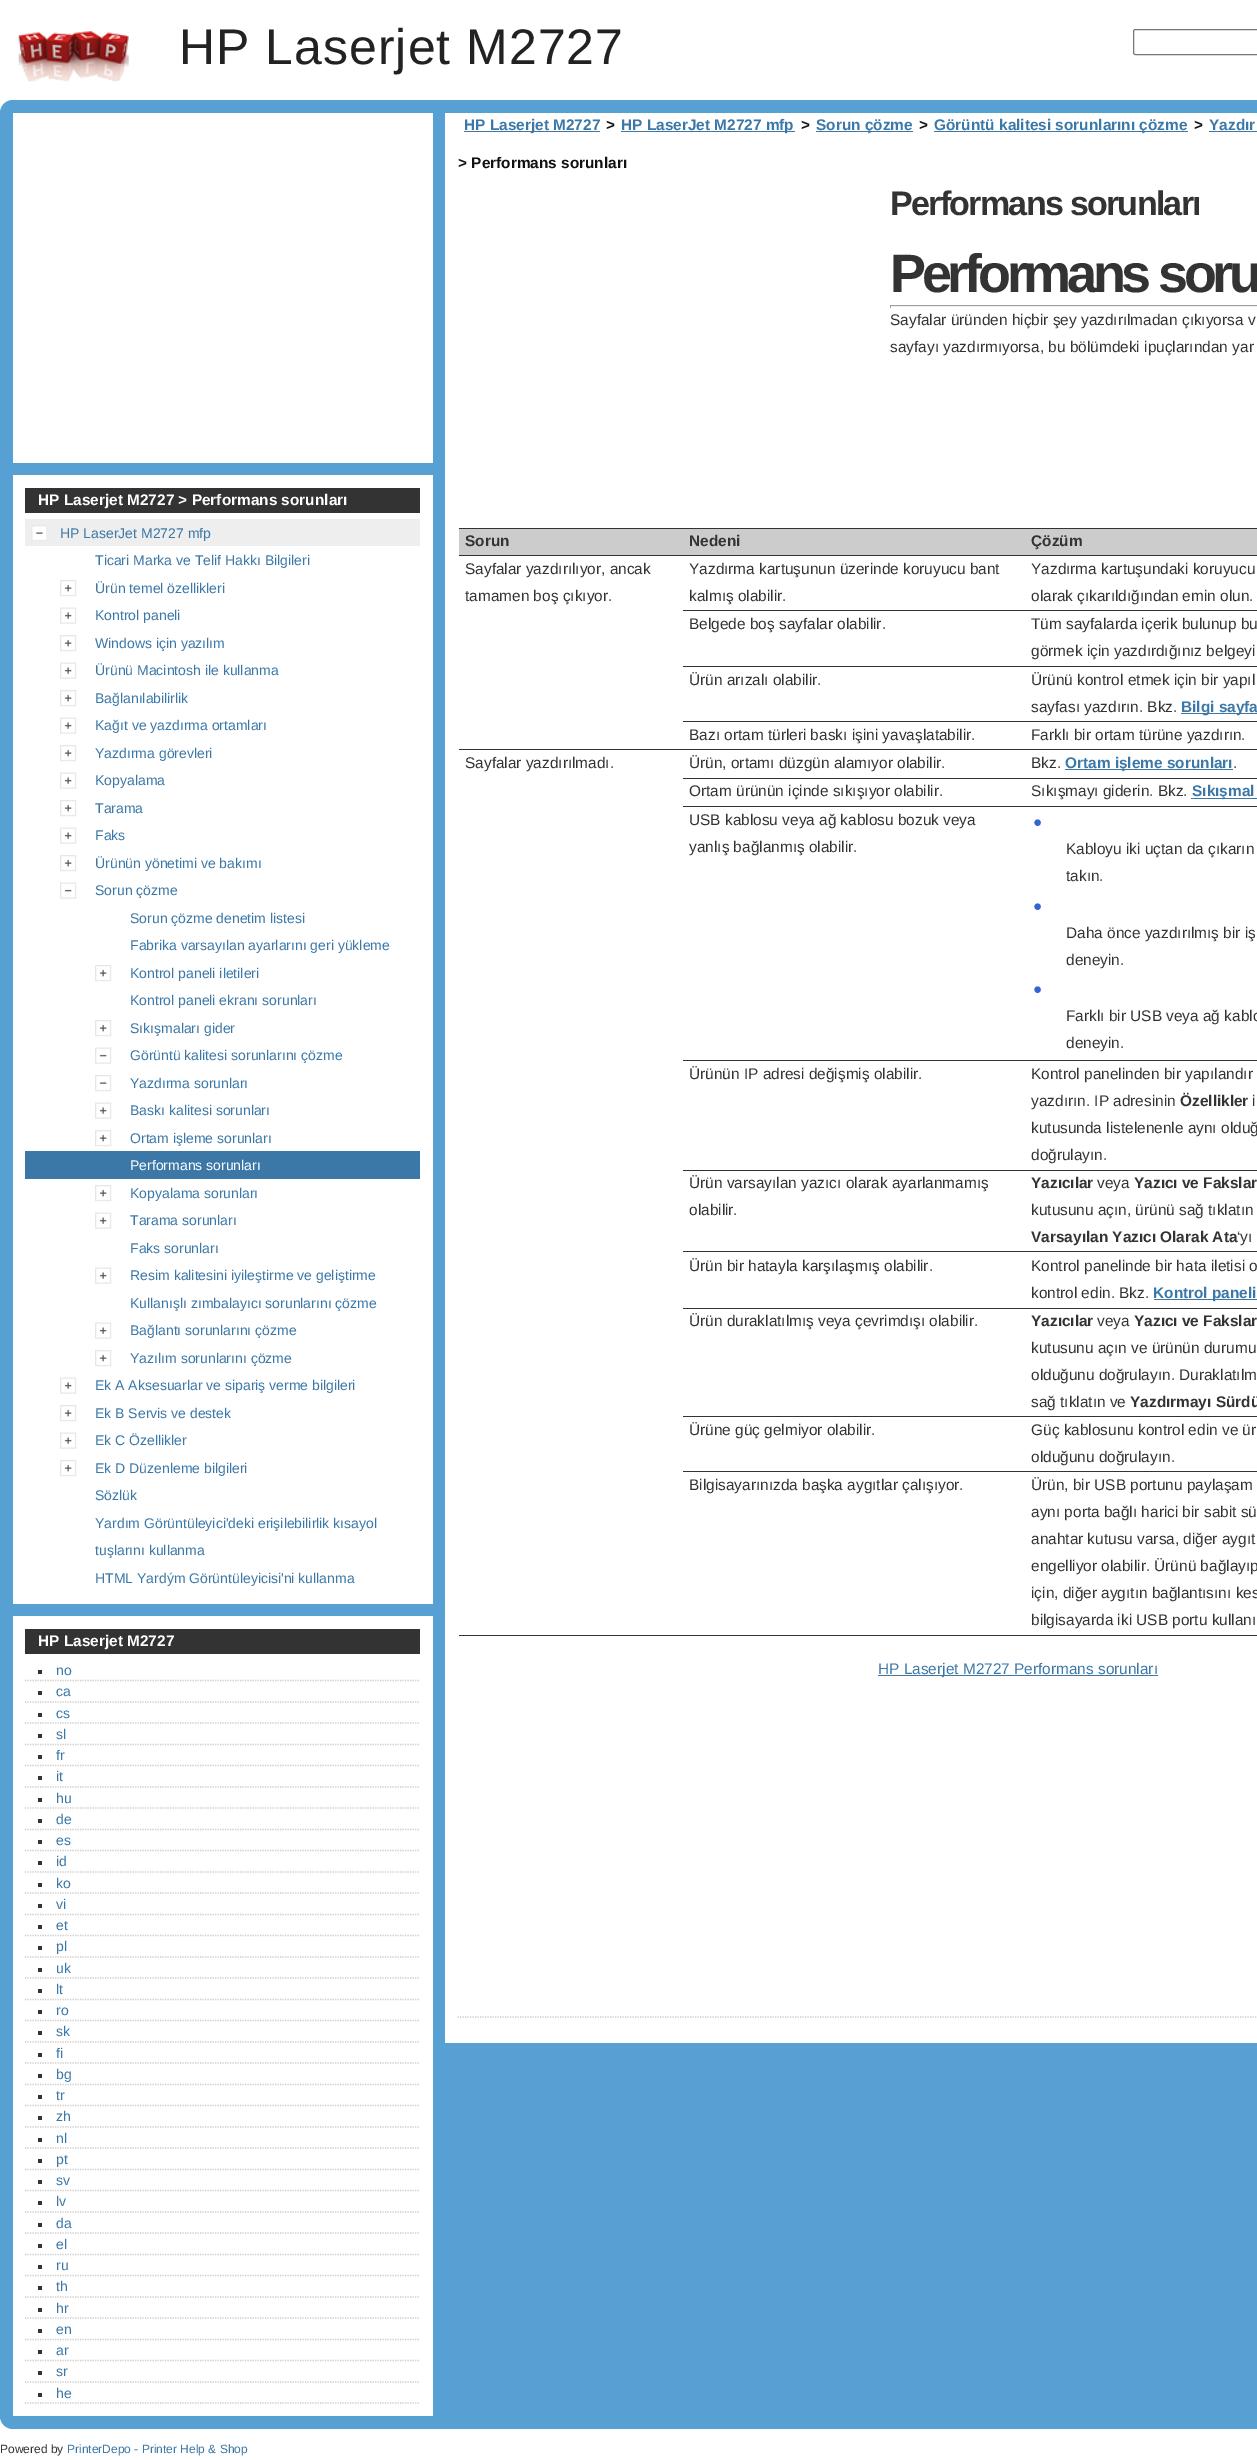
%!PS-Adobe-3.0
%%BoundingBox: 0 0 1257 2460
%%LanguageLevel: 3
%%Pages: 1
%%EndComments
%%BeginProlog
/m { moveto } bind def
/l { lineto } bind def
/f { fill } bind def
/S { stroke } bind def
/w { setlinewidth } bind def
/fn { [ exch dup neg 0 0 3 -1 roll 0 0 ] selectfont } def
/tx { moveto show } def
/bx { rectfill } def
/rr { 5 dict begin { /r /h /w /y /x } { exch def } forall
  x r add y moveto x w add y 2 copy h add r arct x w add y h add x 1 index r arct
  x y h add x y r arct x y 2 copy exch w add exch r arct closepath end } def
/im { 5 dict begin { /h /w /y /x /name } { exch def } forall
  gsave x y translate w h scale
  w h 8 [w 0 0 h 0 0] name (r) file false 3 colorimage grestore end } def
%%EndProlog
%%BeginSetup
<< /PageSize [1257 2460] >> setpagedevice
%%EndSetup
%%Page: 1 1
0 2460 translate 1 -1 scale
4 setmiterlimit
1 setgray
0 0 1257 2460 bx
(image0.raw) 18 31 111 51 im
/LiberationSans-Regular 50 fn
0.133 setgray
179 64 m 1 0 (HP Laserjet M2727) ashow
0.463 setgray
1133.5 29.5 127 25 2 rr S
0.337 0.627 0.827 setrgbcolor
0 100 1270 2329 13 rr f
1 setgray
13 113 420 350 bx
13 475 420 1129 bx
0.2 setgray
25 488 395 25 bx
/LiberationSans-Bold 15.4 fn
1 setgray
(HP Laserjet M2727 > Performans sorunları) 38 505 tx
0.933 setgray
25 519 395 27 bx
(image1.raw) 31 525 16 16 im
/LiberationSans-Regular 14 fn
0.235 0.471 0.655 setrgbcolor
(HP LaserJet M2727 mfp) 60 538 tx
(Ticari Marka ve Telif Hakkı Bilgileri) 95 565 tx
(image2.raw) 60 580 17 17 im
(Ürün temel özellikleri) 95 593 tx
(image3.raw) 60 607 17 17 im
(Kontrol paneli) 95 620 tx
(image2.raw) 60 635 17 17 im
(Windows için yazılım) 95 648 tx
(image3.raw) 60 662 17 17 im
(Ürünü Macintosh ile kullanma) 95 675 tx
(image2.raw) 60 690 17 17 im
(Bağlanılabilirlik) 95 703 tx
(image3.raw) 60 717 17 17 im
(Kağıt ve yazdırma ortamları) 95 730 tx
(image2.raw) 60 745 17 17 im
(Yazdırma görevleri) 95 758 tx
(image4.raw) 60 772 17 17 im
(Kopyalama) 95 785 tx
(image2.raw) 60 800 17 17 im
(Tarama) 95 813 tx
(image3.raw) 60 827 17 17 im
(Faks) 95 840 tx
(image2.raw) 60 855 17 17 im
(Ürünün yönetimi ve bakımı) 95 868 tx
(image5.raw) 60 882 17 17 im
(Sorun çözme) 95 895 tx
(Sorun çözme denetim listesi) 130 923 tx
(Fabrika varsayılan ayarlarını geri yükleme) 130 950 tx
(image2.raw) 95 965 17 17 im
(Kontrol paneli iletileri) 130 978 tx
(Kontrol paneli ekranı sorunları) 130 1005 tx
(image2.raw) 95 1020 17 17 im
(Sıkışmaları gider) 130 1033 tx
(image5.raw) 95 1047 17 17 im
(Görüntü kalitesi sorunlarını çözme) 130 1060 tx
(image6.raw) 95 1075 17 17 im
(Yazdırma sorunları) 130 1088 tx
(image3.raw) 95 1102 17 17 im
(Baskı kalitesi sorunları) 130 1115 tx
(image2.raw) 95 1130 17 17 im
(Ortam işleme sorunları) 130 1143 tx
25 1151 395 28 bx
1 setgray
(Performans sorunları) 130 1170 tx
(image2.raw) 95 1185 17 17 im
0.235 0.471 0.655 setrgbcolor
(Kopyalama sorunları) 130 1198 tx
(image3.raw) 95 1212 17 17 im
(Tarama sorunları) 130 1225 tx
(Faks sorunları) 130 1253 tx
(image3.raw) 95 1267 17 17 im
(Resim kalitesini iyileştirme ve geliştirme) 130 1280 tx
(Kullanışlı zımbalayıcı sorunlarını çözme) 130 1308 tx
(image3.raw) 95 1322 17 17 im
(Bağlantı sorunlarını çözme) 130 1335 tx
(image2.raw) 95 1350 17 17 im
(Yazılım sorunlarını çözme) 130 1363 tx
(image3.raw) 60 1377 17 17 im
(Ek A Aksesuarlar ve sipariş verme bilgileri) 95 1390 tx
(image2.raw) 60 1405 17 17 im
(Ek B Servis ve destek) 95 1418 tx
(image3.raw) 60 1432 17 17 im
(Ek C Özellikler) 95 1445 tx
(image2.raw) 60 1460 17 17 im
(Ek D Düzenleme bilgileri) 95 1473 tx
(Sözlük) 95 1500 tx
(Yardım Görüntüleyici'deki erişilebilirlik kısayol) 95 1528 tx
(tuşlarını kullanma) 95 1555 tx
(HTML Yardým Görüntüleyicisi'ni kullanma) 95 1583 tx
1 setgray
13 1616 420 800 bx
0.2 setgray
25 1629 395 25 bx
/LiberationSans-Bold 15.4 fn
1 setgray
(HP Laserjet M2727) 38 1646 tx
0.8 setgray
1.2 w
[1.25 1.25] 0 setdash
25 1680.5 m 420 1680.5 l S
0.2 setgray
38 1670 4 4 bx
/LiberationSans-Regular 14 fn
0.235 0.471 0.655 setrgbcolor
(no) 56 1675 tx
0.8 setgray
25 1702 m 420 1702 l S
0.2 setgray
38 1691 4 4 bx
0.235 0.471 0.655 setrgbcolor
(ca) 56 1696 tx
0.8 setgray
25 1723 m 420 1723 l S
0.2 setgray
38 1713 4 4 bx
0.235 0.471 0.655 setrgbcolor
(cs) 56 1718 tx
0.8 setgray
25 1744.5 m 420 1744.5 l S
0.2 setgray
38 1734 4 4 bx
0.235 0.471 0.655 setrgbcolor
(sl) 56 1739 tx
0.8 setgray
25 1765.5 m 420 1765.5 l S
0.2 setgray
38 1755 4 4 bx
0.235 0.471 0.655 setrgbcolor
(fr) 56 1760 tx
0.8 setgray
25 1787 m 420 1787 l S
0.2 setgray
38 1776 4 4 bx
0.235 0.471 0.655 setrgbcolor
(it) 56 1781 tx
0.8 setgray
25 1808 m 420 1808 l S
0.2 setgray
38 1798 4 4 bx
0.235 0.471 0.655 setrgbcolor
(hu) 56 1803 tx
0.8 setgray
25 1829.5 m 420 1829.5 l S
0.2 setgray
38 1819 4 4 bx
0.235 0.471 0.655 setrgbcolor
(de) 56 1824 tx
0.8 setgray
25 1850.5 m 420 1850.5 l S
0.2 setgray
38 1840 4 4 bx
0.235 0.471 0.655 setrgbcolor
(es) 56 1845 tx
0.8 setgray
25 1872 m 420 1872 l S
0.2 setgray
38 1861 4 4 bx
0.235 0.471 0.655 setrgbcolor
(id) 56 1866 tx
0.8 setgray
25 1893 m 420 1893 l S
0.2 setgray
38 1883 4 4 bx
0.235 0.471 0.655 setrgbcolor
(ko) 56 1888 tx
0.8 setgray
25 1914.5 m 420 1914.5 l S
0.2 setgray
38 1904 4 4 bx
0.235 0.471 0.655 setrgbcolor
(vi) 56 1909 tx
0.8 setgray
25 1935.5 m 420 1935.5 l S
0.2 setgray
38 1925 4 4 bx
0.235 0.471 0.655 setrgbcolor
(et) 56 1930 tx
0.8 setgray
25 1957 m 420 1957 l S
0.2 setgray
38 1946 4 4 bx
0.235 0.471 0.655 setrgbcolor
(pl) 56 1951 tx
0.8 setgray
25 1978 m 420 1978 l S
0.2 setgray
38 1968 4 4 bx
0.235 0.471 0.655 setrgbcolor
(uk) 56 1973 tx
0.8 setgray
25 1999.5 m 420 1999.5 l S
0.2 setgray
38 1989 4 4 bx
0.235 0.471 0.655 setrgbcolor
(lt) 56 1994 tx
0.8 setgray
25 2020.5 m 420 2020.5 l S
0.2 setgray
38 2010 4 4 bx
0.235 0.471 0.655 setrgbcolor
(ro) 56 2015 tx
0.8 setgray
25 2042 m 420 2042 l S
0.2 setgray
38 2031 4 4 bx
0.235 0.471 0.655 setrgbcolor
(sk) 56 2036 tx
0.8 setgray
25 2063 m 420 2063 l S
0.2 setgray
38 2053 4 4 bx
0.235 0.471 0.655 setrgbcolor
(fi) 56 2058 tx
0.8 setgray
25 2084.5 m 420 2084.5 l S
0.2 setgray
38 2074 4 4 bx
0.235 0.471 0.655 setrgbcolor
(bg) 56 2079 tx
0.8 setgray
25 2105.5 m 420 2105.5 l S
0.2 setgray
38 2095 4 4 bx
0.235 0.471 0.655 setrgbcolor
(tr) 56 2100 tx
0.8 setgray
25 2127 m 420 2127 l S
0.2 setgray
38 2116 4 4 bx
0.235 0.471 0.655 setrgbcolor
(zh) 56 2121 tx
0.8 setgray
25 2148 m 420 2148 l S
0.2 setgray
38 2138 4 4 bx
0.235 0.471 0.655 setrgbcolor
(nl) 56 2143 tx
0.8 setgray
25 2169.5 m 420 2169.5 l S
0.2 setgray
38 2159 4 4 bx
0.235 0.471 0.655 setrgbcolor
(pt) 56 2164 tx
0.8 setgray
25 2190.5 m 420 2190.5 l S
0.2 setgray
38 2180 4 4 bx
0.235 0.471 0.655 setrgbcolor
(sv) 56 2185 tx
0.8 setgray
25 2212 m 420 2212 l S
0.2 setgray
38 2201 4 4 bx
0.235 0.471 0.655 setrgbcolor
(lv) 56 2206 tx
0.8 setgray
25 2233 m 420 2233 l S
0.2 setgray
38 2223 4 4 bx
0.235 0.471 0.655 setrgbcolor
(da) 56 2228 tx
0.8 setgray
25 2254.5 m 420 2254.5 l S
0.2 setgray
38 2244 4 4 bx
0.235 0.471 0.655 setrgbcolor
(el) 56 2249 tx
0.8 setgray
25 2275.5 m 420 2275.5 l S
0.2 setgray
38 2265 4 4 bx
0.235 0.471 0.655 setrgbcolor
(ru) 56 2270 tx
0.8 setgray
25 2297 m 420 2297 l S
0.2 setgray
38 2286 4 4 bx
0.235 0.471 0.655 setrgbcolor
(th) 56 2291 tx
0.8 setgray
25 2318 m 420 2318 l S
0.2 setgray
38 2308 4 4 bx
0.235 0.471 0.655 setrgbcolor
(hr) 56 2313 tx
0.8 setgray
25 2339.5 m 420 2339.5 l S
0.2 setgray
38 2329 4 4 bx
0.235 0.471 0.655 setrgbcolor
(en) 56 2334 tx
0.8 setgray
25 2360.5 m 420 2360.5 l S
0.2 setgray
38 2350 4 4 bx
0.235 0.471 0.655 setrgbcolor
(ar) 56 2355 tx
0.8 setgray
25 2382 m 420 2382 l S
0.2 setgray
38 2371 4 4 bx
0.235 0.471 0.655 setrgbcolor
(sr) 56 2376 tx
0.8 setgray
25 2403 m 420 2403 l S
0.2 setgray
38 2393 4 4 bx
0.235 0.471 0.655 setrgbcolor
(he) 56 2398 tx
1 setgray
445 113 812 1930 bx
0.235 0.471 0.655 setrgbcolor
464 131 136 1 bx
/LiberationSans-Bold 15.4 fn
(HP Laserjet M2727) 464 130 tx
0.067 setgray
(>) 606 130 tx
0.235 0.471 0.655 setrgbcolor
621 131 174 1 bx
(HP LaserJet M2727 mfp) 621 130 tx
0.067 setgray
(>) 801 130 tx
0.235 0.471 0.655 setrgbcolor
816 131 97 1 bx
(Sorun çözme) 816 130 tx
0.067 setgray
(>) 919 130 tx
0.235 0.471 0.655 setrgbcolor
934 131 254 1 bx
(Görüntü kalitesi sorunlarını çözme) 934 130 tx
0.067 setgray
(>) 1194 130 tx
0.235 0.471 0.655 setrgbcolor
(Yazdır) 1209 130 tx
1209 131 48 1 bx
0.067 setgray
(> Performans sorunları) 458 168 tx
/LiberationSans-Bold 34 fn
0.2 setgray
890 215 m -1.7 0 (Performans sorunları) ashow
0.8 setgray
457.5 2017 m 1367.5 2017 l S
/LiberationSans-Bold 54 fn
0.2 setgray
890 292 m -4.3 0 (Performans soru) ashow
0.624 setgray
890 305 367 1 bx
0.933 setgray
890 306 367 1 bx
0.624 setgray
890 305 1 3 bx
/LiberationSans-Regular 15.4 fn
0.2 setgray
(Sayfalar üründen hiçbir şey yazdırılmadan çıkıyorsa v) 890 325 tx
(sayfayı yazdırmıyorsa, bu bölümdeki ipuçlarından yar) 890 352 tx
459 528 798 1 bx
459 1635 798 1 bx
0.8 setgray
459 529 798 26 bx
/LiberationSans-Bold 15.4 fn
0.2 setgray
(Sorun) 465 546 tx
(Nedeni) 689 546 tx
459 555 798 1 bx
(Çözüm) 1031 546 tx
/LiberationSans-Regular 15.4 fn
(Sayfalar yazdırılıyor, ancak) 465 574 tx
(tamamen boş çıkıyor.) 465 601 tx
(Yazdırma kartuşunun üzerinde koruyucu bant) 689 574 tx
(kalmış olabilir.) 689 601 tx
683 610 574 1 bx
(Yazdırma kartuşundaki koruyucu) 1031 574 tx
(olarak çıkarıldığından emin olun.) 1031 601 tx
(Belgede boş sayfalar olabilir.) 689 629 tx
683 666 574 1 bx
(Tüm sayfalarda içerik bulunup bu) 1031 629 tx
(görmek için yazdırdığınız belgeyi) 1031 656 tx
(Ürün arızalı olabilir.) 689 685 tx
683 721 574 1 bx
(Ürünü kontrol etmek için bir yapıl) 1031 685 tx
(sayfası yazdırın. Bkz.) 1031 712 tx
0.235 0.471 0.655 setrgbcolor
1181 713 76 1 bx
/LiberationSans-Bold 15.4 fn
(Bilgi sayfa) 1181 712 tx
/LiberationSans-Regular 15.4 fn
0.2 setgray
(Bazı ortam türleri baskı işini yavaşlatabilir.) 689 740 tx
459 749 798 1 bx
(Farklı bir ortam türüne yazdırın.) 1031 740 tx
(Sayfalar yazdırılmadı.) 465 768 tx
(Ürün, ortamı düzgün alamıyor olabilir.) 689 768 tx
683 778 574 1 bx
(Bkz.) 1031 768 tx
0.235 0.471 0.655 setrgbcolor
1065 769 168 1 bx
/LiberationSans-Bold 15.4 fn
(Ortam işleme sorunları) 1065 768 tx
/LiberationSans-Regular 15.4 fn
0.2 setgray
(.) 1233 768 tx
(Ortam ürünün içinde sıkışıyor olabilir.) 689 796 tx
683 806 574 1 bx
(Sıkışmayı giderin. Bkz.) 1031 796 tx
0.235 0.471 0.655 setrgbcolor
1191 798 66 1 bx
/LiberationSans-Bold 15.4 fn
(Sıkışmal) 1192 796 tx
/LiberationSans-Regular 15.4 fn
0.2 setgray
(USB kablosu veya ağ kablosu bozuk veya) 689 825 tx
(yanlış bağlanmış olabilir.) 689 852 tx
683 1060 574 1 bx
0.2 0.4 0.8 setrgbcolor
(●) 1033 827 tx
0.2 setgray
(Kabloyu iki uçtan da çıkarın) 1066 854 tx
(takın.) 1066 881 tx
0.2 0.4 0.8 setrgbcolor
(●) 1033 911 tx
0.2 setgray
(Daha önce yazdırılmış bir iş) 1066 938 tx
(deneyin.) 1066 965 tx
0.2 0.4 0.8 setrgbcolor
(●) 1033 994 tx
0.2 setgray
(Farklı bir USB veya ağ kablo) 1066 1021 tx
(deneyin.) 1066 1048 tx
(Ürünün IP adresi değişmiş olabilir.) 689 1079 tx
683 1170 574 1 bx
(Kontrol panelinden bir yapılandır) 1031 1079 tx
(yazdırın. IP adresinin) 1031 1106 tx
/LiberationSans-Bold 15.4 fn
(Özellikler) 1180 1106 tx
/LiberationSans-Regular 15.4 fn
(i) 1252 1106 tx
(kutusunda listelenenle aynı olduğ) 1031 1133 tx
(doğrulayın.) 1031 1160 tx
(Ürün varsayılan yazıcı olarak ayarlanmamış) 689 1188 tx
(olabilir.) 689 1215 tx
683 1251 574 1 bx
/LiberationSans-Bold 15.4 fn
(Yazıcılar) 1031 1188 tx
/LiberationSans-Regular 15.4 fn
(veya) 1097 1188 tx
/LiberationSans-Bold 15.4 fn
(Yazıcı ve Fakslar) 1134 1188 tx
/LiberationSans-Regular 15.4 fn
(kutusunu açın, ürünü sağ tıklatın) 1031 1215 tx
/LiberationSans-Bold 15.4 fn
(Varsayılan Yazıcı Olarak Ata) 1031 1242 tx
/LiberationSans-Regular 15.4 fn
(‘yı) 1237 1242 tx
(Ürün bir hatayla karşılaşmış olabilir.) 689 1271 tx
683 1308 574 1 bx
(Kontrol panelinde bir hata iletisi o) 1031 1271 tx
(kontrol edin. Bkz.) 1031 1298 tx
0.235 0.471 0.655 setrgbcolor
1154 1299 103 1 bx
/LiberationSans-Bold 15.4 fn
(Kontrol paneli) 1153 1298 tx
/LiberationSans-Regular 15.4 fn
0.2 setgray
(Ürün duraklatılmış veya çevrimdışı olabilir.) 689 1326 tx
683 1416 574 1 bx
/LiberationSans-Bold 15.4 fn
(Yazıcılar) 1031 1326 tx
/LiberationSans-Regular 15.4 fn
(veya) 1097 1326 tx
/LiberationSans-Bold 15.4 fn
(Yazıcı ve Fakslar) 1134 1326 tx
/LiberationSans-Regular 15.4 fn
(kutusunu açın ve ürünün durumu) 1031 1353 tx
(olduğunu doğrulayın. Duraklatılm) 1031 1380 tx
(sağ tıklatın ve) 1031 1407 tx
/LiberationSans-Bold 15.4 fn
(Yazdırmayı Sürdü) 1130 1407 tx
/LiberationSans-Regular 15.4 fn
(Ürüne güç gelmiyor olabilir.) 689 1435 tx
683 1471 574 1 bx
(Güç kablosunu kontrol edin ve ür) 1031 1435 tx
(olduğunu doğrulayın.) 1031 1462 tx
(Bilgisayarınızda başka aygıtlar çalışıyor.) 689 1490 tx
(Ürün, bir USB portunu paylaşam) 1031 1490 tx
(aynı porta bağlı harici bir sabit sü) 1031 1517 tx
(anahtar kutusu varsa, diğer aygıt) 1031 1544 tx
(engelliyor olabilir. Ürünü bağlayıp) 1031 1571 tx
(için, diğer aygıtın bağlantısını kes) 1031 1598 tx
(bilgisayarda iki USB portu kullanı) 1031 1625 tx
0.235 0.471 0.655 setrgbcolor
878 1675 280 1 bx
(HP Laserjet M2727 Performans sorunları) 878 1674 tx
/LiberationSans-Regular 12 fn
0.2 setgray
(Powered by) 0 2453 tx
0.235 0.471 0.655 setrgbcolor
(PrinterDepo - Printer Help & Shop) 67 2453 tx
showpage
%%EOF
